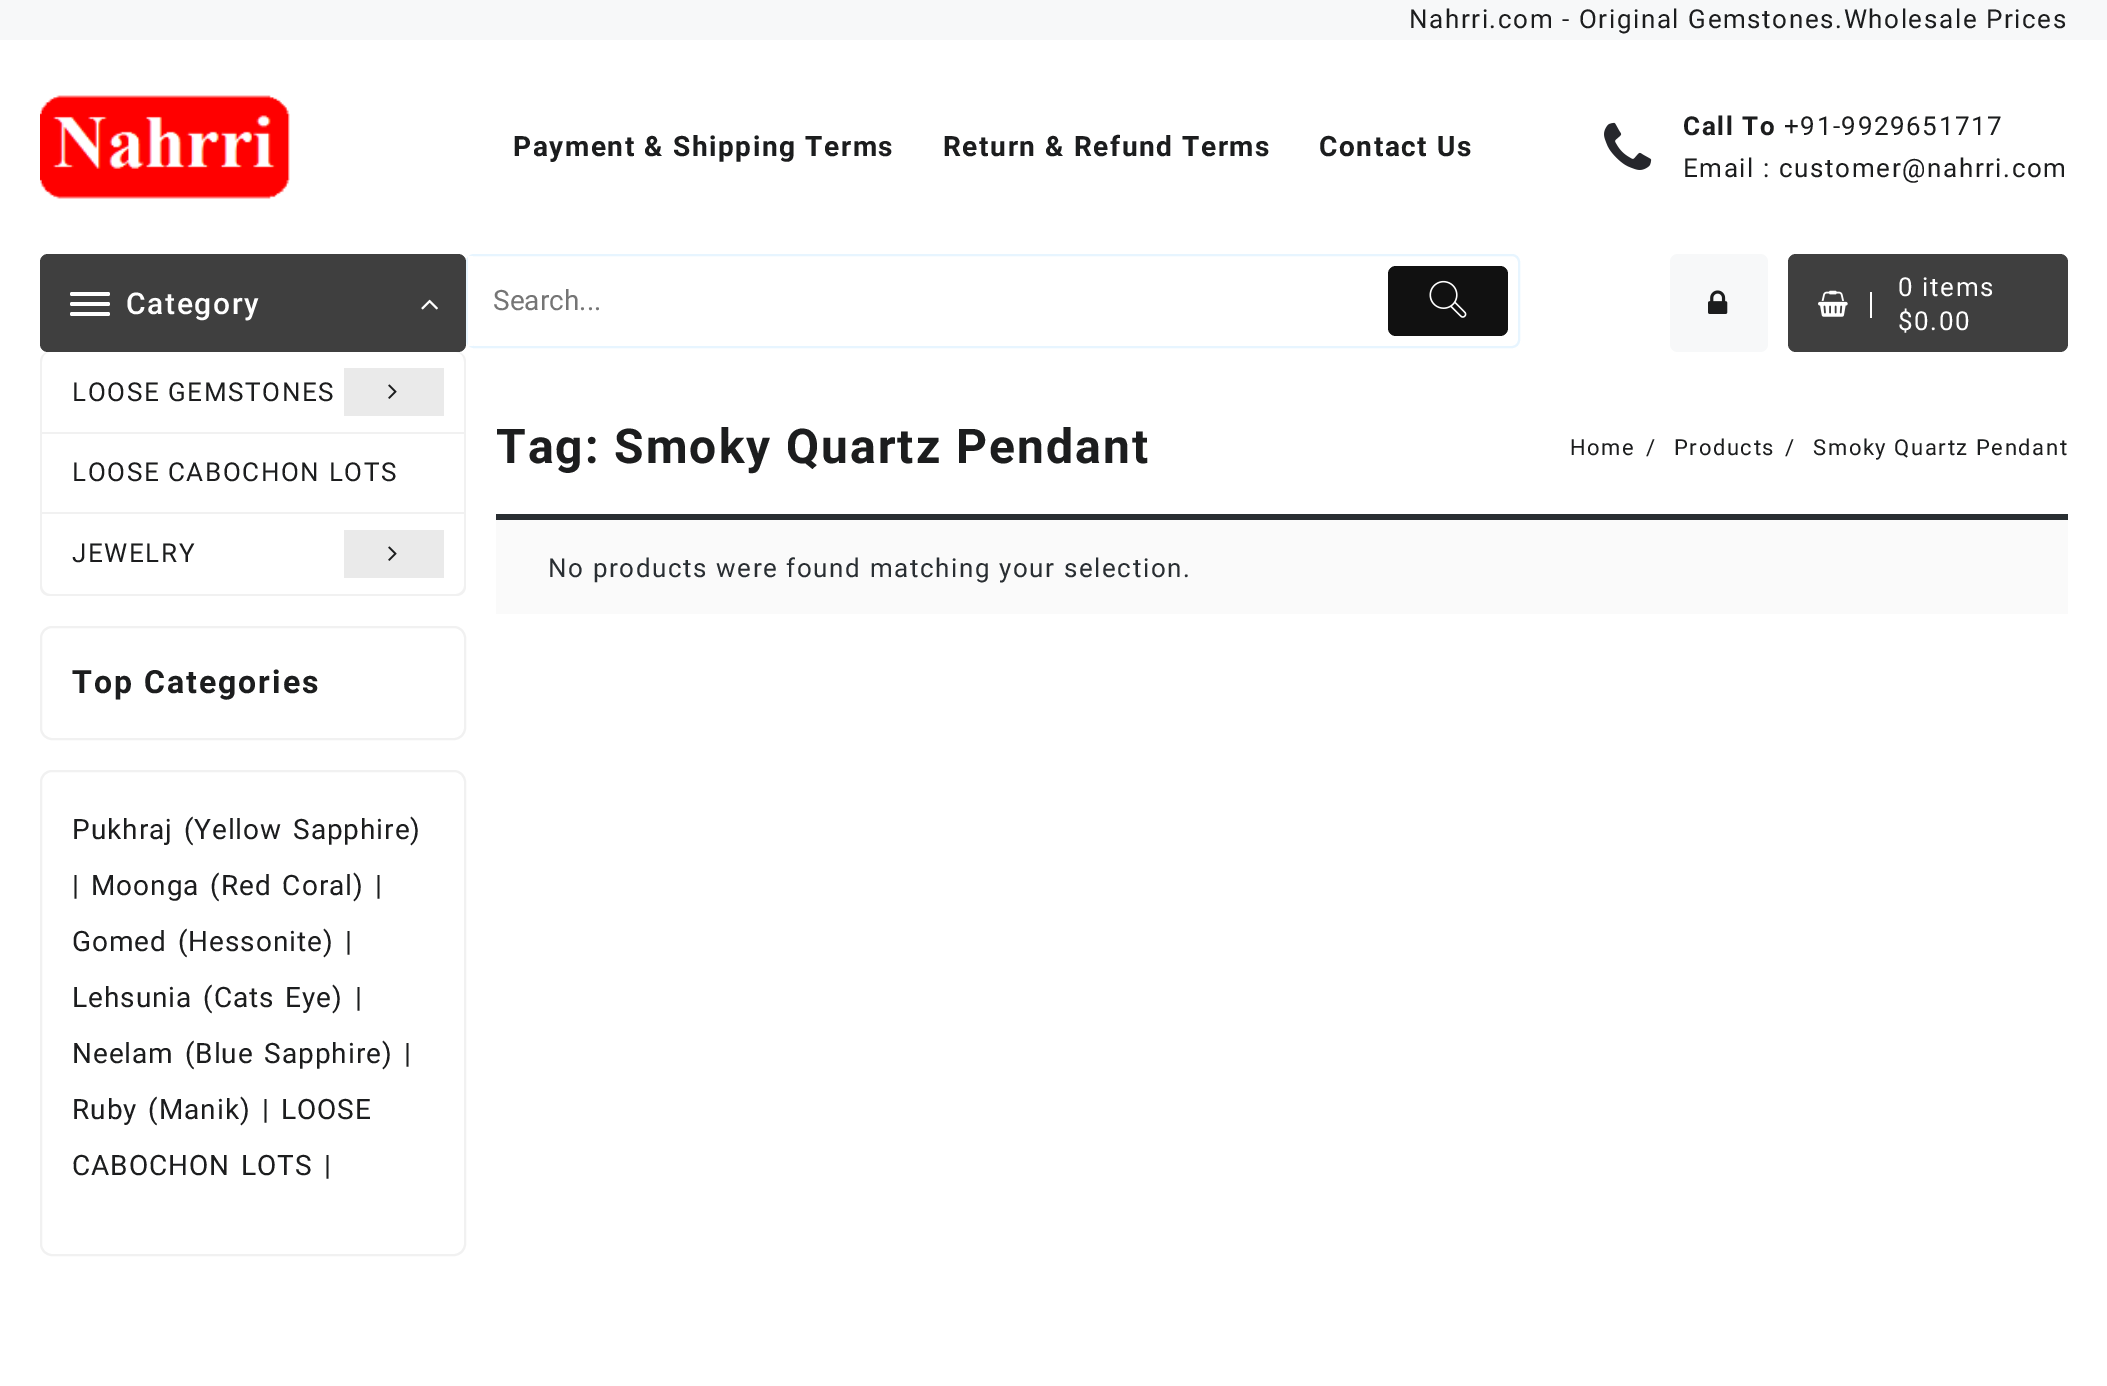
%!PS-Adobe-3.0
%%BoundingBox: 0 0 2107 1386
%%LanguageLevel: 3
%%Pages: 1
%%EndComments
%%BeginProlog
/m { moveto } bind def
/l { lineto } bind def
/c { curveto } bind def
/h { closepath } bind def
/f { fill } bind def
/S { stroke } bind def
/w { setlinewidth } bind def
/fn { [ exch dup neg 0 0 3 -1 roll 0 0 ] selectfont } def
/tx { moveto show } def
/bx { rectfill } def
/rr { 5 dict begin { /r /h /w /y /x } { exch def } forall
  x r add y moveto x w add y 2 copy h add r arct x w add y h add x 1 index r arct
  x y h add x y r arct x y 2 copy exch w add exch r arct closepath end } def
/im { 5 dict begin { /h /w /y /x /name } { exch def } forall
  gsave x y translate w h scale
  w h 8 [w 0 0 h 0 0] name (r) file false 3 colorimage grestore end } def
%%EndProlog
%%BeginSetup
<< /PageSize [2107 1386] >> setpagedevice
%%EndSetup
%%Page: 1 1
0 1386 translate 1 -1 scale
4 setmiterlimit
1 setgray
0 0 2107 1386 bx
0.969 0.973 0.976 setrgbcolor
0 0 2107 40 bx
/Roboto-Regular 26 fn
0.11 0.114 0.118 setrgbcolor
1409 28 m 1.6 0 (Nahrri.com - Original Gemstones.Wholesale Prices) ashow
(image0.raw) 40 95 250 104 im
/Roboto-Bold 28 fn
513 156 m 1.6 0 (Payment & Shipping Terms) ashow
943 156 m 1.6 0 (Return & Refund Terms) ashow
1319 156 m 1.6 0 (Contact Us) ashow
(image1.raw) 1604 122 48 48 im
/Roboto-Bold 26 fn
1683 135 m 1.6 0 (Call To) ashow
/Roboto-Regular 26 fn
1784 135 m 1.6 0 (+91-9929651717) ashow
1683 177 m 1.6 0 (Email : customer@nahrri.com) ashow
0.247 setgray
40 254 426 98 8 rr f
1 setgray
70 292 40 4 2 rr f
70 302 40 4 2 rr f
70 312 40 4 2 rr f
/Roboto-Medium 30 fn
126 314 m 1.6 0 (Category) ashow
(image2.raw) 421 299 17 11 im
0.945 setgray
50 352 m 456 352 l 462 352 466 356 466 362 c 466 586 l 466 592 462 596 456 596 c 50 596 l 44 596 40 592 40 586 c 40 362 l 40 356 44 352 50 352 c h 50 352 m 456 352 l 460 352 464 356 464 362 c 464 586 l 464 590 460 594 456 594 c 50 594 l 46 594 42 590 42 586 c 42 362 l 42 356 46 352 50 352 c h eofill
42 432 422 2 bx
/Roboto-Regular 26 fn
0.11 0.114 0.118 setrgbcolor
72 401 m 1.6 0 (LOOSE GEMSTONES) ashow
0.918 setgray
344 368 100 48 bx
(image3.raw) 388 384 9 15 im
0.945 setgray
42 512 422 2 bx
0.11 0.114 0.118 setrgbcolor
72 481 m 1.6 0 (LOOSE CABOCHON LOTS) ashow
72 562 m 1.6 0 (JEWELRY) ashow
0.918 setgray
344 530 100 48 bx
(image3.raw) 388 546 9 15 im
0.906 0.961 1 setrgbcolor
2 w
467 255 1052 92 7 rr S
1 setgray
468 256 5 90 bx
/Roboto-Regular 28 fn
0.459 setgray
(Search...) 493 310 tx
0.067 setgray
1388 266 120 70 8 rr f
(image4.raw) 1429 280 38 38 im
0.969 0.973 0.976 setrgbcolor
1670 254 98 98 8 rr f
(image5.raw) 1708 290 20 24 im
0.247 setgray
1788 254 280 98 8 rr f
1 setgray
1870 292 2 26 bx
(image6.raw) 1818 290 30 27 im
/Roboto-Regular 26 fn
1898 296 m 1.6 0 (0 items) ashow
1898 330 m 1.6 0 ($0.00) ashow
/Roboto-Bold 48 fn
0.11 0.114 0.118 setrgbcolor
496 463 m 2 0 (Tag: Smoky Quartz Pendant) ashow
/Roboto-Regular 22 fn
1570 455 m 1.6 0 (Home) ashow
1646 455 m 1.6 0 (/) ashow
1674 455 m 1.6 0 (Products) ashow
1785 455 m 1.6 0 (/) ashow
1813 455 m 1.6 0 (Smoky Quartz Pendant) ashow
0.98 setgray
496 520 1572 94 bx
0.161 0.18 0.196 setrgbcolor
496 514 1572 6 bx
/Roboto-Regular 26 fn
548 577 m 1.6 0 (No products were found matching your selection.) ashow
0.945 setgray
41 627 424 112 11 rr S
/Roboto-Bold 32 fn
0.11 0.114 0.118 setrgbcolor
72 693 m 2 0 (Top Categories) ashow
0.945 setgray
41 771 424 484 11 rr S
/Roboto-Regular 28 fn
0.11 0.114 0.118 setrgbcolor
72 839 m 3 0 32 0.95 0 (Pukhraj \(Yellow Sapphire\)) awidthshow
72 895 m 0.95 0 (|) ashow
91 895 m 3 0 32 0.95 0 (Moonga \(Red Coral\)) awidthshow
375 895 m 0.95 0 (|) ashow
72 951 m 3 0 32 0.95 0 (Gomed \(Hessonite\)) awidthshow
345 951 m 0.95 0 (|) ashow
72 1007 m 3 0 32 0.95 0 (Lehsunia \(Cats Eye\)) awidthshow
355 1007 m 0.95 0 (|) ashow
72 1063 m 3 0 32 0.95 0 (Neelam \(Blue Sapphire\)) awidthshow
404 1063 m 0.95 0 (|) ashow
72 1119 m 3 0 32 0.95 0 (Ruby \(Manik\)) awidthshow
262 1119 m 0.95 0 (|) ashow
281 1119 m 0.95 0 (LOOSE) ashow
72 1175 m 3 0 32 0.95 0 (CABOCHON LOTS) awidthshow
324 1175 m 0.95 0 (|) ashow
showpage
%%EOF
